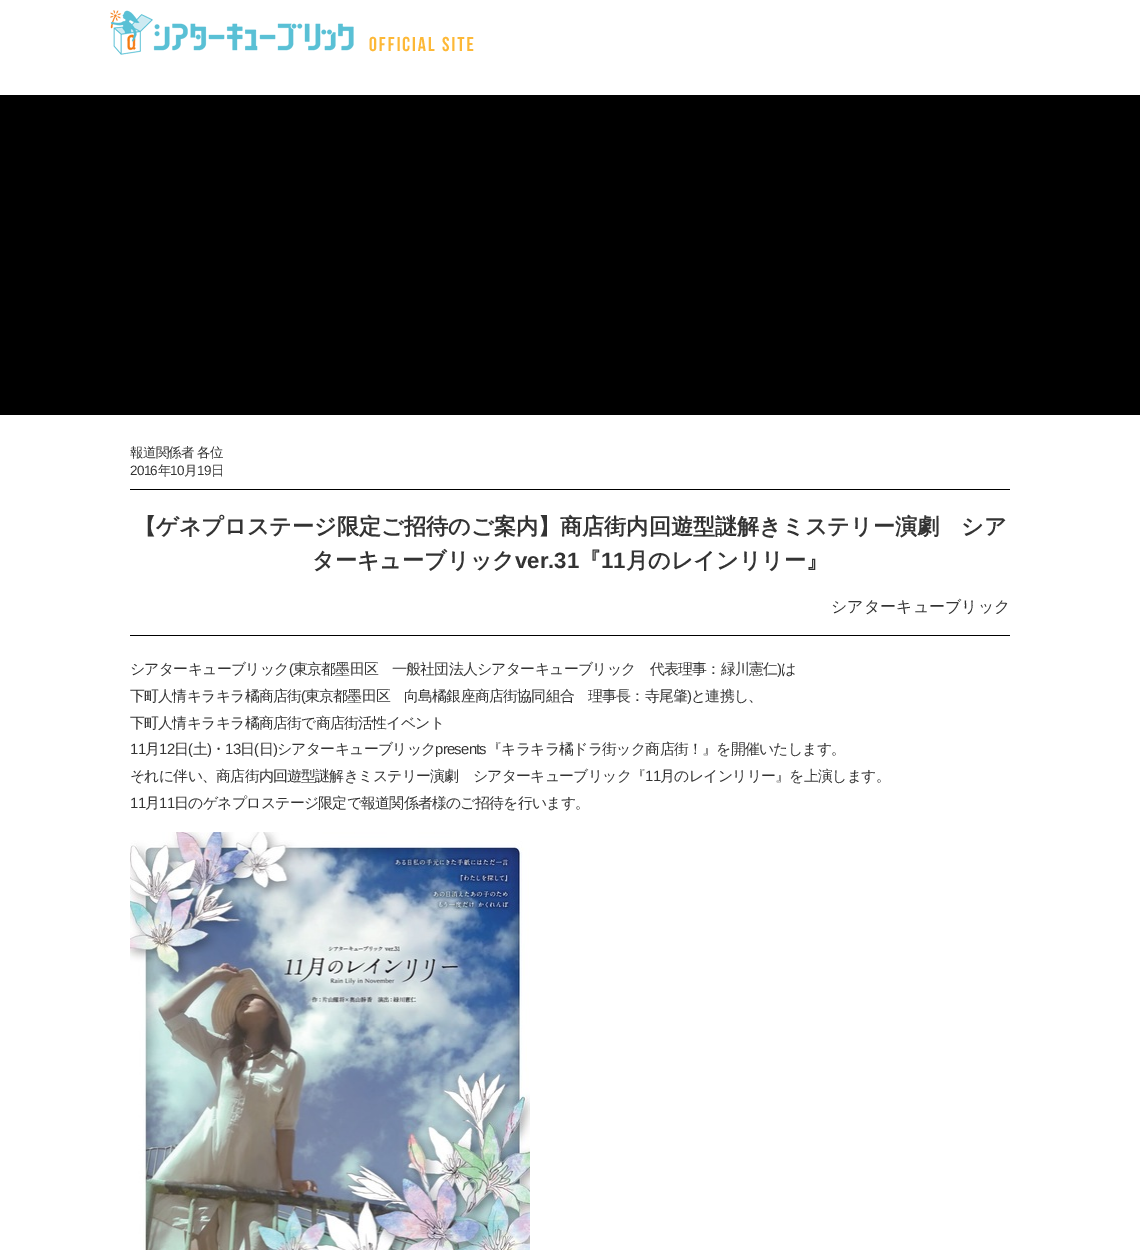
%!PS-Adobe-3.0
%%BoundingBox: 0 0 1140 1250
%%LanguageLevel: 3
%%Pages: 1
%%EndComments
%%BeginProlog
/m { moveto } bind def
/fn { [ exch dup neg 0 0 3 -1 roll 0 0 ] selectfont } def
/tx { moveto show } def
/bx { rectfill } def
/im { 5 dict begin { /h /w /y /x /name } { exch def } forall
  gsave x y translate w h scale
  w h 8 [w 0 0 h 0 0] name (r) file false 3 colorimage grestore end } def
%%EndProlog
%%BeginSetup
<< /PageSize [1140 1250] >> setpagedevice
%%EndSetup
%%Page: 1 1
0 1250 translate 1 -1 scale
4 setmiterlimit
1 setgray
0 0 1140 1250 bx
(image0.raw) 110 10 364 45 im
0 setgray
0 95 1140 320 bx
/WenQuanYiZenHei-Medium 13.5 fn
0.2 setgray
130 457 m -0.75 0 (報道関係者 各位) ashow
/LiberationSans-Regular 13.5 fn
130 475 m -0.75 0 (2016) ashow
/WenQuanYiZenHei-Medium 13.5 fn
158 475 m -0.75 0 (年) ashow
/LiberationSans-Regular 13.5 fn
170 475 m -0.75 0 (10) ashow
/WenQuanYiZenHei-Medium 13.5 fn
184 475 m -0.75 0 (月) ashow
/LiberationSans-Regular 13.5 fn
197 475 m -0.75 0 (19) ashow
/WenQuanYiZenHei-Medium 13.5 fn
211 475 m -0.75 0 (日) ashow
0 setgray
130 489 880 1 bx
130 635 880 1 bx
/WenQuanYiZenHei-Bold 22.15 fn
0.2 setgray
(【ゲネプロステージ限定ご招待のご案内】商店街内回遊型謎解きミステリー演劇　シア) 134 534 tx
(ターキューブリック) 312 568 tx
/LiberationSans-Bold 22.15 fn
(ver.31) 515 568 tx
/WenQuanYiZenHei-Bold 22.15 fn
(『) 579 568 tx
/LiberationSans-Bold 22.15 fn
(11) 601 568 tx
/WenQuanYiZenHei-Bold 22.15 fn
(月のレインリリー』) 626 568 tx
/WenQuanYiZenHei-Medium 16 fn
(シアターキューブリック) 831 612 tx
/WenQuanYiZenHei-Medium 14.9 fn
130 674 m -0.75 0 (シアターキューブリック) ashow
/LiberationSans-Regular 14.9 fn
289 674 m -0.75 0 (\() ashow
/WenQuanYiZenHei-Medium 14.9 fn
293 674 m -0.75 0 (東京都墨田区　一般社団法人シアターキューブリック　代表理事：緑川憲仁) ashow
/LiberationSans-Regular 14.9 fn
777 674 m -0.75 0 (\)) ashow
/WenQuanYiZenHei-Medium 14.9 fn
781 674 m -0.75 0 (は) ashow
130 701 m -0.75 0 (下町人情キラキラ橘商店街) ashow
/LiberationSans-Regular 14.9 fn
301 701 m -0.75 0 (\() ashow
/WenQuanYiZenHei-Medium 14.9 fn
305 701 m -0.75 0 (東京都墨田区　向島橘銀座商店街協同組合　理事長：寺尾肇) ashow
/LiberationSans-Regular 14.9 fn
687 701 m -0.75 0 (\)) ashow
/WenQuanYiZenHei-Medium 14.9 fn
691 701 m -0.75 0 (と連携し、) ashow
130 728 m -0.75 0 (下町人情キラキラ橘商店街で商店街活性イベント) ashow
/LiberationSans-Regular 14.9 fn
130 754 m -0.75 0 (11) ashow
/WenQuanYiZenHei-Medium 14.9 fn
145 754 m -0.75 0 (月) ashow
/LiberationSans-Regular 14.9 fn
159 754 m -0.75 0 (12) ashow
/WenQuanYiZenHei-Medium 14.9 fn
174 754 m -0.75 0 (日) ashow
/LiberationSans-Regular 14.9 fn
188 754 m -0.75 0 (\() ashow
/WenQuanYiZenHei-Medium 14.9 fn
193 754 m -0.75 0 (土) ashow
/LiberationSans-Regular 14.9 fn
207 754 m -0.75 0 (\)) ashow
/WenQuanYiZenHei-Medium 14.9 fn
211 754 m -0.75 0 (・) ashow
/LiberationSans-Regular 14.9 fn
225 754 m -0.75 0 (13) ashow
/WenQuanYiZenHei-Medium 14.9 fn
240 754 m -0.75 0 (日) ashow
/LiberationSans-Regular 14.9 fn
254 754 m -0.75 0 (\() ashow
/WenQuanYiZenHei-Medium 14.9 fn
259 754 m -0.75 0 (日) ashow
/LiberationSans-Regular 14.9 fn
273 754 m -0.75 0 (\)) ashow
/WenQuanYiZenHei-Medium 14.9 fn
277 754 m -0.75 0 (シアターキューブリック) ashow
/LiberationSans-Regular 14.9 fn
435 754 m -0.75 0 (presents) ashow
/WenQuanYiZenHei-Medium 14.9 fn
487 754 m -0.75 0 (『キラキラ橘ドラ街ック商店街！』を開催いたします。) ashow
130 781 m -0.75 0 (それに伴い、商店街内回遊型謎解きミステリー演劇　シアターキューブリック『) ashow
/LiberationSans-Regular 14.9 fn
645 781 m -0.75 0 (11) ashow
/WenQuanYiZenHei-Medium 14.9 fn
660 781 m -0.75 0 (月のレインリリー』を上演します。) ashow
/LiberationSans-Regular 14.9 fn
130 808 m -0.75 0 (11) ashow
/WenQuanYiZenHei-Medium 14.9 fn
145 808 m -0.75 0 (月) ashow
/LiberationSans-Regular 14.9 fn
159 808 m -0.75 0 (11) ashow
/WenQuanYiZenHei-Medium 14.9 fn
174 808 m -0.75 0 (日のゲネプロステージ限定で報道関係者様のご招待を行います。) ashow
(image1.raw) 130 832 400 418 im
showpage
%%EOF
